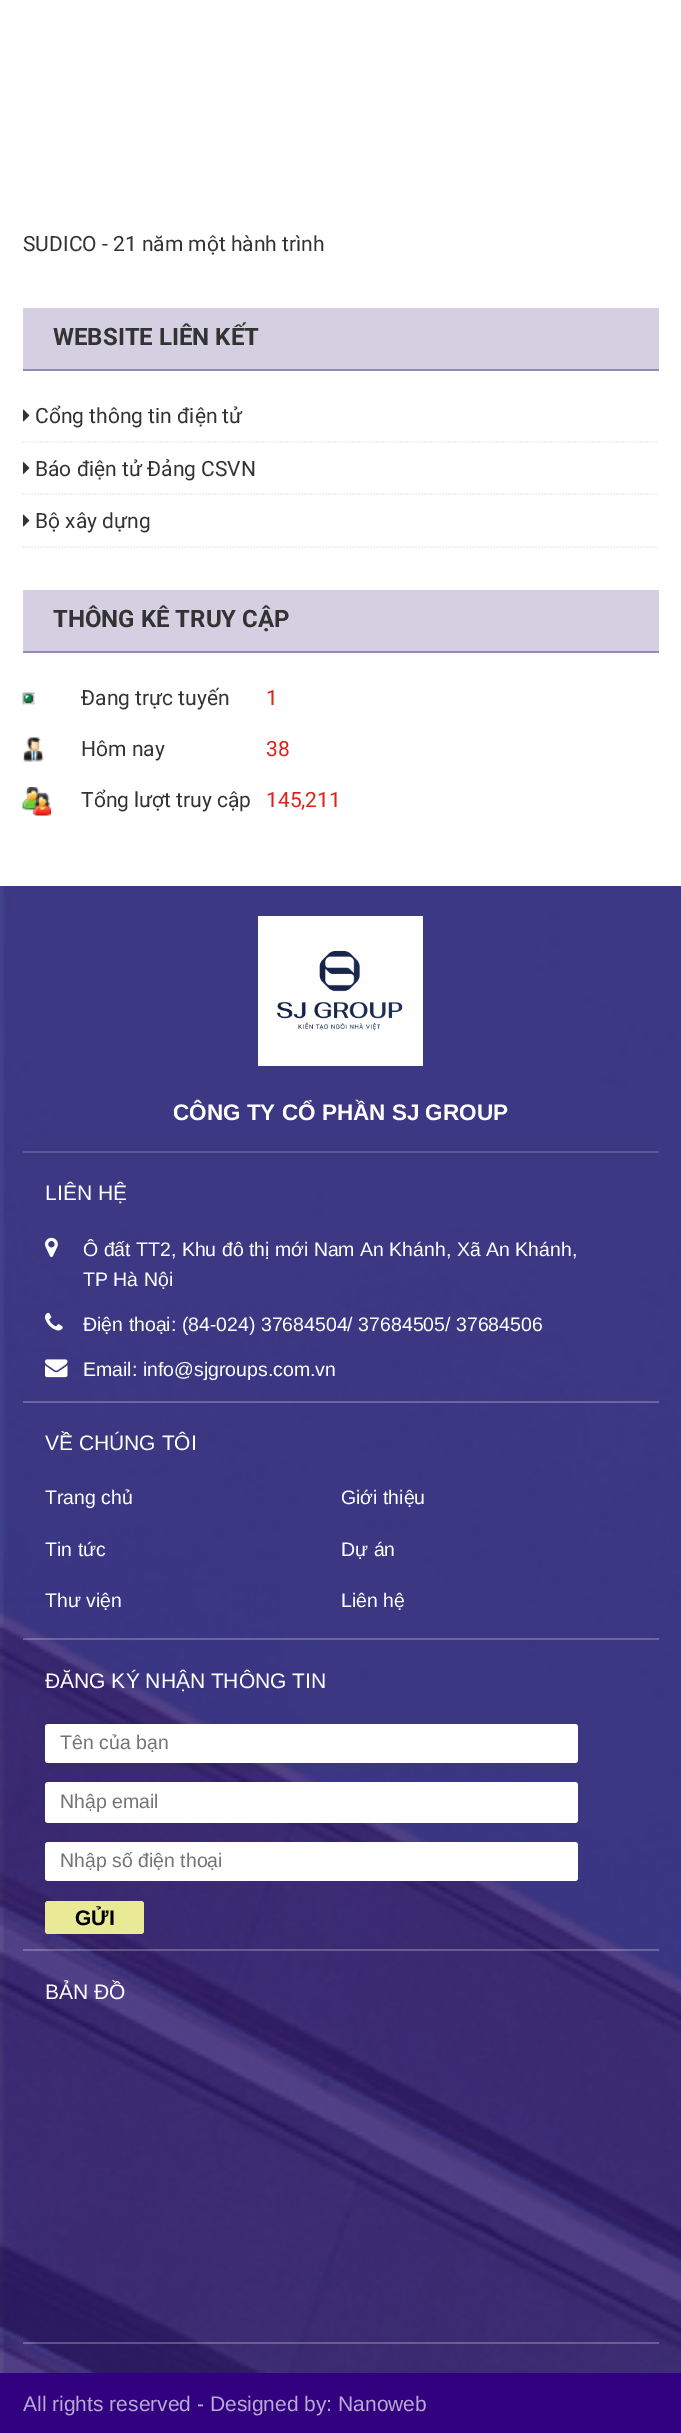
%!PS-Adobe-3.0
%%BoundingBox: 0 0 681 2433
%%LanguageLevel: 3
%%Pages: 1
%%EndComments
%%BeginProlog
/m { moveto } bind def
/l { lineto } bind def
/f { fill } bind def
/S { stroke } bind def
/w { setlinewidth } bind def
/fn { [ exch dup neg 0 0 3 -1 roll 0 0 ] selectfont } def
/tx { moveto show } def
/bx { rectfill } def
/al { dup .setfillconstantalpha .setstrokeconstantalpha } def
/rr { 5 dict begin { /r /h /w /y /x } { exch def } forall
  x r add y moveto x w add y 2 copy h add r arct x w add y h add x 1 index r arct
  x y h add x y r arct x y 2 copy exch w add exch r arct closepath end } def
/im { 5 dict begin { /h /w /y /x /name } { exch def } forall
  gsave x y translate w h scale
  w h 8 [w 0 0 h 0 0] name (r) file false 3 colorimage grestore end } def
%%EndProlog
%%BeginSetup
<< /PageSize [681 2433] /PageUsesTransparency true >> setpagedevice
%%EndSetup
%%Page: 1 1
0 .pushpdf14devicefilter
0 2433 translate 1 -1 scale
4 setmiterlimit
1 setgray
0 0 681 2433 bx
/Roboto-Regular 21 fn
0.2 setgray
(SUDICO - 21 năm một hành trình) 23 251 tx
0.831 0.816 0.886 setrgbcolor
23 308 636 61 bx
0.58 0.541 0.718 setrgbcolor
23 369 636 2 bx
/Roboto-Bold 24 fn
0.2 setgray
(WEBSITE LIÊN KẾT) 53 345 tx
0.922 setgray
1.5 w
[1.5 1.5] 0 setdash
22.5 442 m 658.5 442 l S
(image0.raw) 23 409 7 13 im
/Roboto-Regular 21 fn
0.2 setgray
(Cổng thông tin điện tử) 35 423 tx
0.922 setgray
22.5 494 m 658.5 494 l S
(image1.raw) 23 462 7 12 im
0.2 setgray
(Báo điện tử Đảng CSVN) 35 476 tx
0.922 setgray
22.5 547 m 658.5 547 l S
(image0.raw) 23 514 7 13 im
0.2 setgray
(Bộ xây dựng) 35 528 tx
0.831 0.816 0.886 setrgbcolor
23 590 636 61 bx
0.58 0.541 0.718 setrgbcolor
23 651 636 2 bx
/Roboto-Bold 24 fn
0.2 setgray
(THÔNG KÊ TRUY CẬP) 53 627 tx
(image2.raw) 22 692 13 13 im
/Roboto-Regular 21 fn
(Đang trực tuyến) 81 705 tx
0.855 0.145 0.11 setrgbcolor
(1) 266 705 tx
(image3.raw) 23 737 21 25 im
0.2 setgray
(Hôm nay) 81 756 tx
0.855 0.145 0.11 setrgbcolor
(38) 266 756 tx
(image4.raw) 22 787 29 29 im
0.2 setgray
(Tổng lượt truy cập) 81 807 tx
0.855 0.145 0.11 setrgbcolor
(145,211) 266 807 tx
(image5.raw) 0 886 681 1487 im
0.357 0.345 0.596 setrgbcolor
23 1151 636 2 bx
(image6.raw) 258 916 165 150 im
/LiberationSans-Bold 22.5 fn
1 setgray
(CÔNG TY CỔ PHẦN SJ GROUP) 173 1120 tx
0.24 al
23 1401 636 2 bx
/LiberationSans-Regular 21 fn
1 al
(LIÊN HỆ) 45 1200 tx
(image7.raw) 45 1237 13 21 im
/LiberationSans-Regular 19.5 fn
(Ô đất TT2, Khu đô thị mới Nam An Khánh, Xã An Khánh,) 83 1256 tx
(TP Hà Nội) 83 1286 tx
(image8.raw) 45 1312 18 19 im
(Điện thoại: \(84-024\) 37684504/ 37684505/ 37684506) 83 1331 tx
(image9.raw) 45 1359 23 19 im
(Email: info@sjgroups.com.vn) 83 1376 tx
0.24 al
23 1638 636 2 bx
/LiberationSans-Regular 21 fn
1 al
(VỀ CHÚNG TÔI) 45 1450 tx
/LiberationSans-Regular 19.5 fn
(Trang chủ) 45 1504 tx
(Giới thiệu) 341 1504 tx
(Tin tức) 45 1556 tx
(Dự án) 341 1556 tx
(Thư viện) 45 1607 tx
(Liên hệ) 341 1607 tx
0.24 al
23 1949 636 2 bx
/LiberationSans-Regular 21 fn
1 al
(ĐĂNG KÝ NHẬN THÔNG TIN) 45 1688 tx
45 1724 533 39 3 rr f
/LiberationSans-Regular 19.5 fn
0.459 setgray
(Tên của bạn) 60 1749 tx
1 setgray
45 1782 533 41 3 rr f
0.459 setgray
(Nhập email) 60 1808 tx
1 setgray
45 1842 533 39 3 rr f
0.459 setgray
(Nhập số điện thoại) 60 1867 tx
0.914 0.914 0.588 setrgbcolor
45 1901 99 33 3 rr f
/LiberationSans-Bold 21 fn
0 setgray
(GỬI) 75 1925 tx
0.24 al
1 setgray
23 2342 636 2 bx
/LiberationSans-Regular 21 fn
1 al
(BẢN ĐỒ) 45 1999 tx
0.192 0.004 0.502 setrgbcolor
0 2373 681 60 bx
0.725 0.663 0.831 setrgbcolor
(All rights reserved - Designed by: Nanoweb) 23 2411 tx
.poppdf14devicefilter showpage
%%EOF
